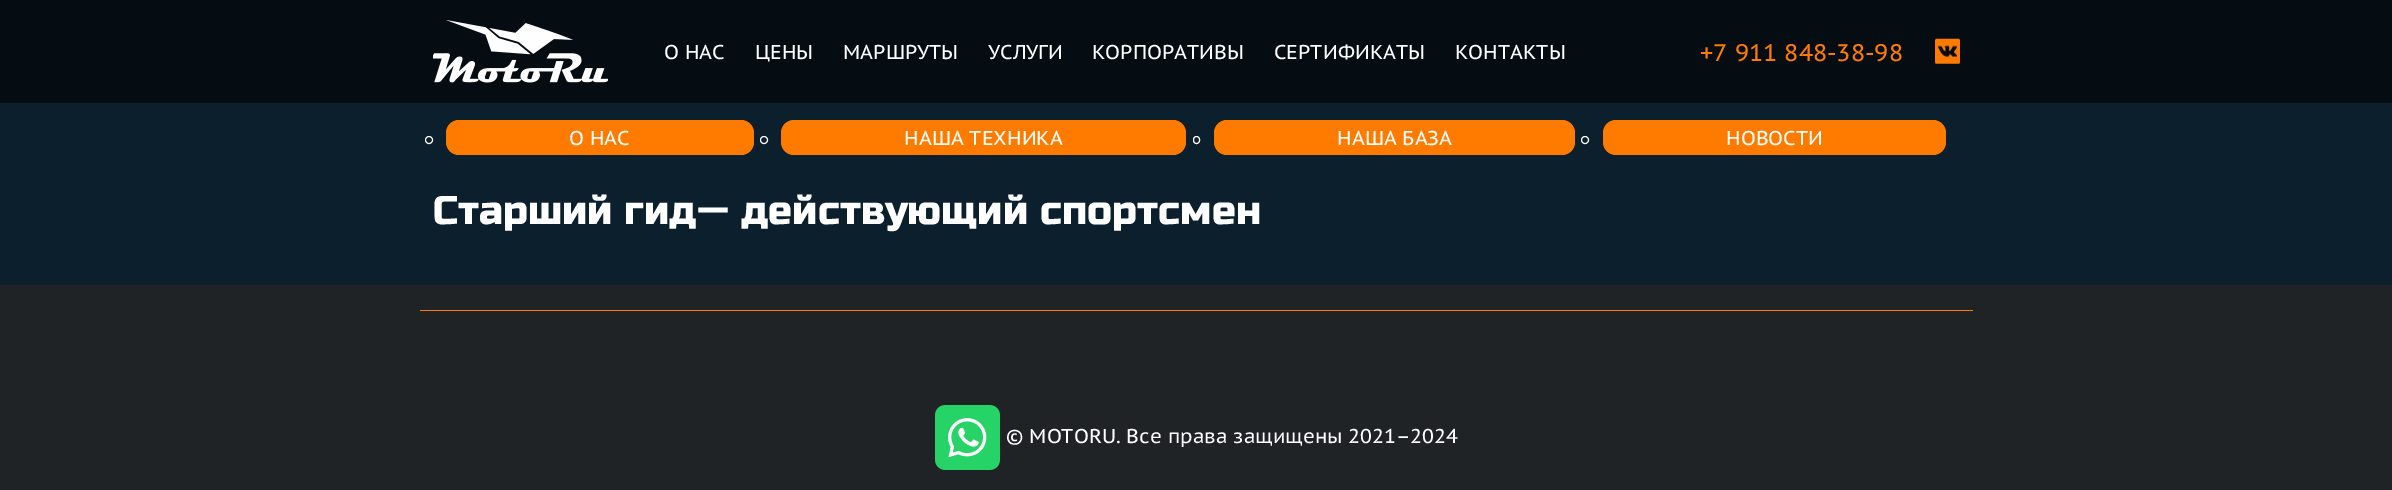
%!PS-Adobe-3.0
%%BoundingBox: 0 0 2392 490
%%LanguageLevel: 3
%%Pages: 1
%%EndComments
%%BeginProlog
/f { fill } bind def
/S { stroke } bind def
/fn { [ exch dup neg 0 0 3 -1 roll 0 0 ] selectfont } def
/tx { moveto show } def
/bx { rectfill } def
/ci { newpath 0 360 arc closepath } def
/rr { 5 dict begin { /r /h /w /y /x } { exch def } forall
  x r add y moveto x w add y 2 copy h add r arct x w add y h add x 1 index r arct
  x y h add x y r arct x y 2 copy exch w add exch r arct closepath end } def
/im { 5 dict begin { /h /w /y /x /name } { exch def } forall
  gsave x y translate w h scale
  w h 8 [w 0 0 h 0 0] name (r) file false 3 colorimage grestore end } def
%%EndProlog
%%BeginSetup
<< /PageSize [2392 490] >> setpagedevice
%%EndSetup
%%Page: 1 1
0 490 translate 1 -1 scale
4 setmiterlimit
0.047 0.122 0.176 setrgbcolor
0 0 2392 490 bx
0.02 0.047 0.071 setrgbcolor
0 0 2392 103 bx
(image0.raw) 433 20 175 63 im
/PTSansCaption-Regular 20 fn
1 setgray
(О НАС) 664 59 tx
(ЦЕНЫ) 755 59 tx
(МАРШРУТЫ) 843 59 tx
(УСЛУГИ) 988 59 tx
(КОРПОРАТИВЫ) 1092 59 tx
(СЕРТИФИКАТЫ) 1274 59 tx
(КОНТАКТЫ) 1455 59 tx
/PTSansCaption-Regular 24 fn
1 0.482 0 setrgbcolor
(+7 911 848-38-98) 1700 61 tx
(image1.raw) 1935 38 25 26 im
1 setgray
429 140 3.5 ci S
1 0.482 0 setrgbcolor
446 120 308 35 13 rr f
/PTSansCaption-Regular 20 fn
1 setgray
(О НАС) 569 145 tx
764 140 3.5 ci S
1 0.482 0 setrgbcolor
781 120 405 35 13 rr f
1 setgray
(НАША ТЕХНИКА) 904 145 tx
1193.5 136.5 6 7 3 rr S
1 0.482 0 setrgbcolor
1214 120 361 35 13 rr f
1 setgray
(НАША БАЗА) 1337 145 tx
1585 140 3.5 ci S
1 0.482 0 setrgbcolor
1603 120 343 35 13 rr f
1 setgray
(НОВОСТИ) 1726 145 tx
/RussoOne-Regular 40 fn
(Старший гид— действующий спортсмен) 433 224 tx
0.122 0.137 0.145 setrgbcolor
0 285 2392 205 bx
1 0.482 0 setrgbcolor
420 310 1553 1 bx
(image2.raw) 935 405 65 65 im
/PTSansCaption-Regular 20 fn
1 setgray
(© MOTORU. Все права защищены 2021–2024) 1006 443 tx
showpage
%%EOF
